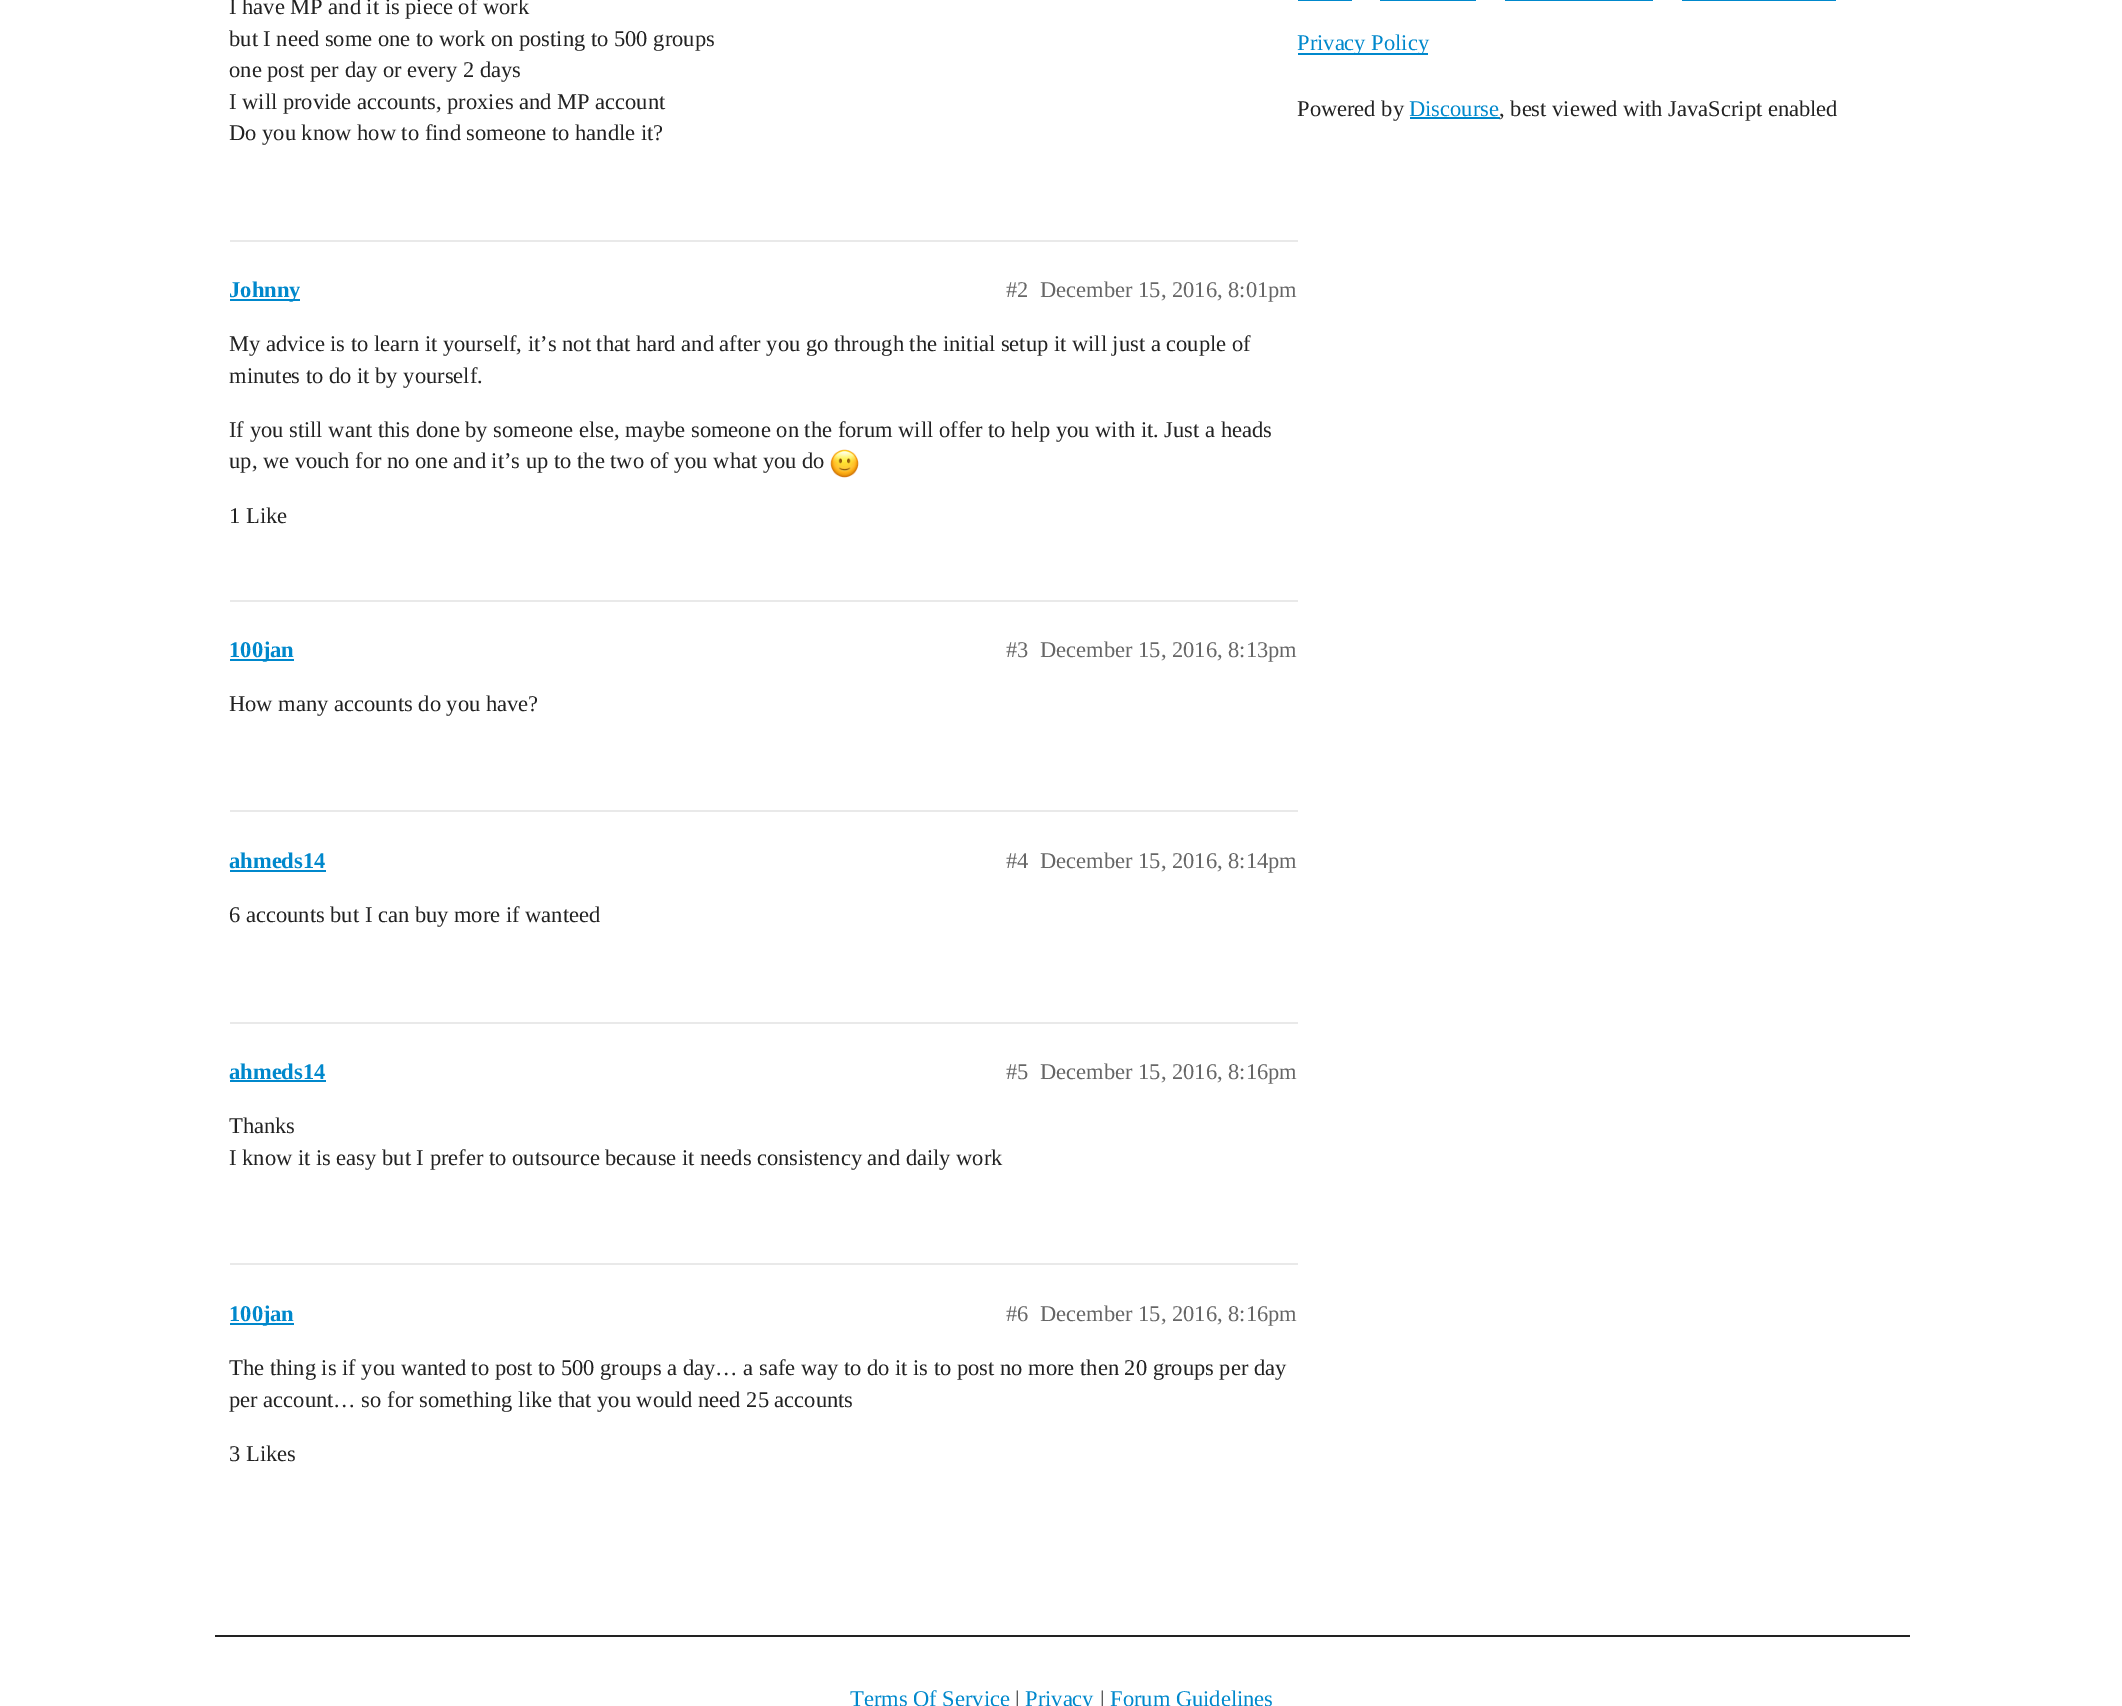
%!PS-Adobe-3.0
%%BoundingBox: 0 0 2122 1706
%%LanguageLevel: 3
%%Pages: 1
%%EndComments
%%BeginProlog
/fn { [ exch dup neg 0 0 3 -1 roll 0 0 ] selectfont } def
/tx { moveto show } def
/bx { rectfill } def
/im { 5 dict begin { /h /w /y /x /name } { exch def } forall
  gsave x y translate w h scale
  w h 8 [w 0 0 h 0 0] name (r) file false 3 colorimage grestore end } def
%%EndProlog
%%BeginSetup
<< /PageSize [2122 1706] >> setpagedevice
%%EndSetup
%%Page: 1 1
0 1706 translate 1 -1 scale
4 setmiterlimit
1 setgray
0 0 2122 1706 bx
/LiberationSerif-Regular 22.5 fn
0.133 setgray
(I have MP and it is piece of work) 229 14 tx
(but I need some one to work on posting to 500 groups) 229 46 tx
(one post per day or every 2 days) 229 77 tx
(I will provide accounts, proxies and MP account) 229 109 tx
(Do you know how to find someone to handle it?) 229 140 tx
0.914 setgray
230 240 1068 2 bx
0 0.533 0.8 setrgbcolor
230 299 70 2 bx
/LiberationSerif-Bold 22.5 fn
(Johnny) 229 297 tx
/LiberationSerif-Regular 22.5 fn
0.4 setgray
(#2) 1006 297 tx
(December 15, 2016, 8:01pm) 1040 297 tx
0.133 setgray
(My advice is to learn it yourself, it’s not that hard and after you go through the initial setup it will just a couple of) 229 351 tx
(minutes to do it by yourself.) 229 383 tx
(If you still want this done by someone else, maybe someone on the forum will offer to help you with it. Just a heads) 229 437 tx
(up, we vouch for no one and it’s up to the two of you what you do) 229 468 tx
(image0.raw) 830 449 29 29 im
(1 Like) 229 523 tx
0.914 setgray
230 600 1068 2 bx
0 0.533 0.8 setrgbcolor
230 659 64 2 bx
/LiberationSerif-Bold 22.5 fn
(100jan) 229 657 tx
/LiberationSerif-Regular 22.5 fn
0.4 setgray
(#3) 1006 657 tx
(December 15, 2016, 8:13pm) 1040 657 tx
0.133 setgray
(How many accounts do you have?) 229 711 tx
0.914 setgray
230 810 1068 2 bx
/LiberationSerif-Bold 22.5 fn
0 0.533 0.8 setrgbcolor
(ahmeds14) 229 868 tx
230 870 96 2 bx
/LiberationSerif-Regular 22.5 fn
0.4 setgray
(#4) 1006 868 tx
(December 15, 2016, 8:14pm) 1040 868 tx
0.133 setgray
(6 accounts but I can buy more if wanteed) 229 922 tx
0.914 setgray
230 1022 1068 2 bx
/LiberationSerif-Bold 22.5 fn
0 0.533 0.8 setrgbcolor
(ahmeds14) 229 1079 tx
230 1080 96 2 bx
/LiberationSerif-Regular 22.5 fn
0.4 setgray
(#5) 1006 1079 tx
(December 15, 2016, 8:16pm) 1040 1079 tx
0.133 setgray
(Thanks) 229 1133 tx
(I know it is easy but I prefer to outsource because it needs consistency and daily work) 229 1165 tx
0.914 setgray
230 1263 1068 2 bx
0 0.533 0.8 setrgbcolor
230 1323 64 2 bx
/LiberationSerif-Bold 22.5 fn
(100jan) 229 1321 tx
/LiberationSerif-Regular 22.5 fn
0.4 setgray
(#6) 1006 1321 tx
(December 15, 2016, 8:16pm) 1040 1321 tx
0.133 setgray
(The thing is if you wanted to post to 500 groups a day… a safe way to do it is to post no more then 20 groups per day) 229 1375 tx
(per account… so for something like that you would need 25 accounts) 229 1407 tx
(3 Likes) 229 1461 tx
0 0.533 0.8 setrgbcolor
1298 0 54 1 bx
1380 0 96 1 bx
1505 0 148 1 bx
1682 0 154 1 bx
1298 53 130 2 bx
(Privacy Policy) 1297 50 tx
0.133 setgray
(Powered by) 1297 116 tx
0 0.533 0.8 setrgbcolor
(Discourse) 1409 116 tx
1410 117 90 2 bx
0.133 setgray
(, best viewed with JavaScript enabled) 1499 116 tx
215 1635 1695 2 bx
0 0.533 0.8 setrgbcolor
(Terms Of Service) 850 1706 tx
0.133 setgray
(|) 1015 1706 tx
0 0.533 0.8 setrgbcolor
(Privacy) 1025 1706 tx
0.133 setgray
(|) 1100 1706 tx
0 0.533 0.8 setrgbcolor
(Forum Guidelines) 1110 1706 tx
showpage
%%EOF
